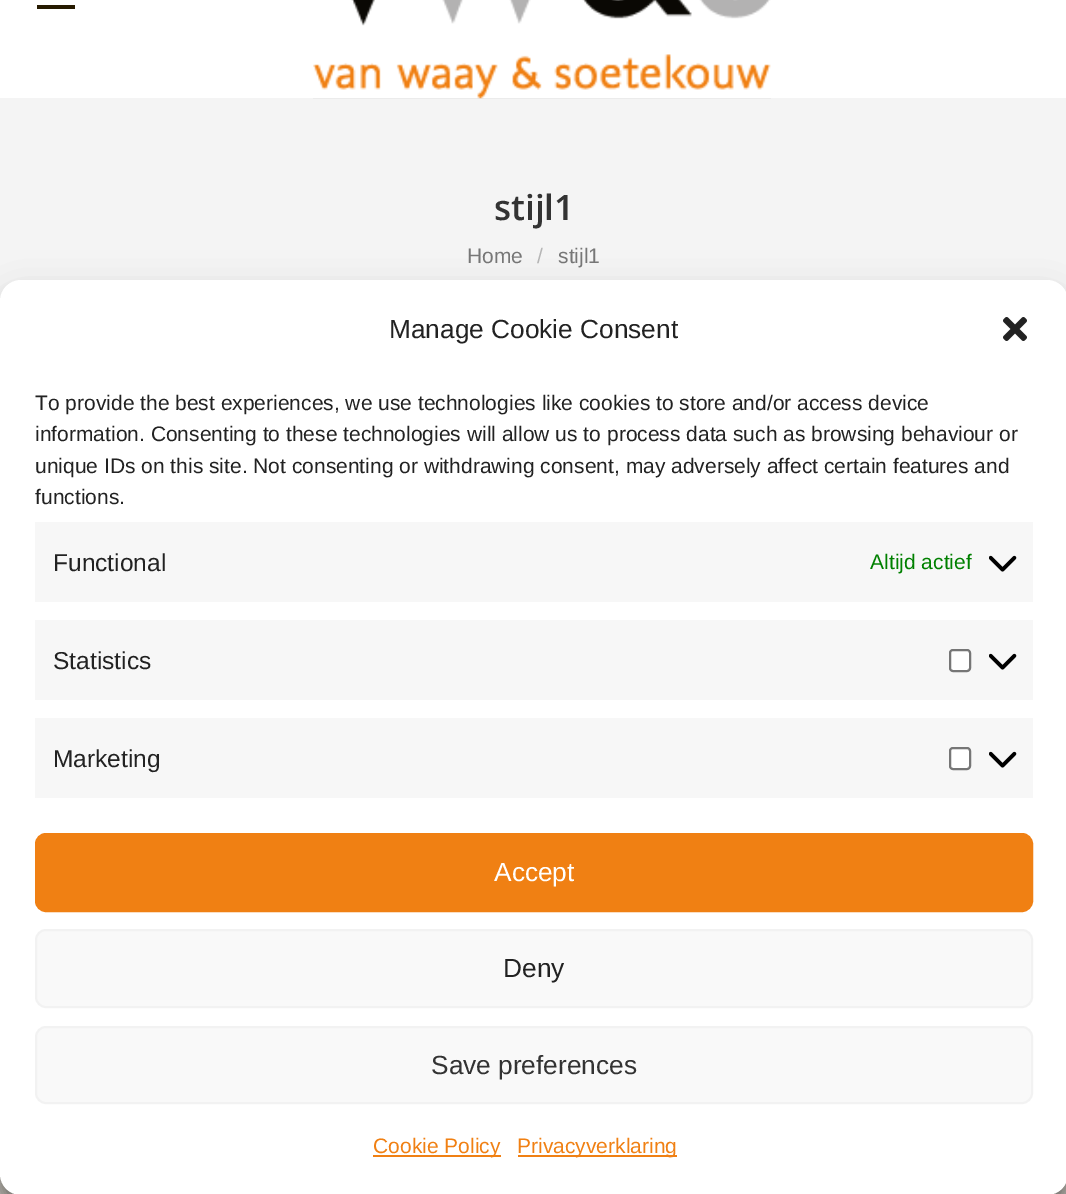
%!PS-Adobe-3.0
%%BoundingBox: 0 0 1066 1194
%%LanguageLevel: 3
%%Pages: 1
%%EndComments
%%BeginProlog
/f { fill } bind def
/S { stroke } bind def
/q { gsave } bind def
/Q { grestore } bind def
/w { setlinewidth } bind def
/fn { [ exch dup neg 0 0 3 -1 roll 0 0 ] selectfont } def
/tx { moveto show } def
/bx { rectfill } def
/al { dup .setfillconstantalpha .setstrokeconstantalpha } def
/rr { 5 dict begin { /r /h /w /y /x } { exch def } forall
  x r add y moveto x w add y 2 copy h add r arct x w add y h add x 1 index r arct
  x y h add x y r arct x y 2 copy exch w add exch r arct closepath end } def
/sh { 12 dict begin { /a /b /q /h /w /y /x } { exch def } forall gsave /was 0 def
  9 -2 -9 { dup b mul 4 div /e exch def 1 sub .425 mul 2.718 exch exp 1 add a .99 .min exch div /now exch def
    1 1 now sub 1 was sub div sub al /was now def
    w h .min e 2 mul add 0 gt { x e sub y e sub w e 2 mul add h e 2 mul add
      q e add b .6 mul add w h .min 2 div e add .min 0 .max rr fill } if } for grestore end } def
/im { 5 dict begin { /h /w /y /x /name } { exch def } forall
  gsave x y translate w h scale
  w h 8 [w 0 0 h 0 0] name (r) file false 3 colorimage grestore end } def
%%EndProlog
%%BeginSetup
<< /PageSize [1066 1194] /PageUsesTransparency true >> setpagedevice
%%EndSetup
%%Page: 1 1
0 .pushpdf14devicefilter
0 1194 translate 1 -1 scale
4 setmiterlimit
1 setgray
0 0 1066 1194 bx
0.149 0.102 0 setrgbcolor
37 5 38 4 bx
0.957 setgray
0 98 1066 203 bx
(image0.raw) 313 0 458 99 im
/OpenSans-SemiBold 35 fn
0.2 setgray
(stijl1) 494 220 tx
/LiberationSans-Regular 21 fn
0.467 setgray
(Home) 467 263 tx
0.714 setgray
(/) 537 263 tx
0.467 setgray
(stijl1) 558 263 tx
0.745 0.729 0.702 setrgbcolor
0 1174 1066 20 bx
0 setgray
0 291 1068 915 21 5 0.23 sh
0 298 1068 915 21 17.5 0.19 sh
1 setgray
0 280 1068 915 21 rr f
/LiberationSans-Regular 26.25 fn
0.133 setgray
(Manage Cookie Consent) 389 338 tx
(image1.raw) 1003 317 24 24 im
/LiberationSans-Regular 21 fn
(To provide the best experiences, we use technologies like cookies to store and/or access device) 35 410 tx
(information. Consenting to these technologies will allow us to process data such as browsing behaviour or) 35 441 tx
(unique IDs on this site. Not consenting or withdrawing consent, may adversely affect certain features and) 35 473 tx
(functions.) 35 504 tx
0.969 setgray
35 522 998 80 bx
/LiberationSans-Regular 24.5 fn
0.133 setgray
(Functional) 53 571 tx
/LiberationSans-Regular 21 fn
0 0.502 0 setrgbcolor
(Altijd actief) 870 569 tx
(image2.raw) 989 555 28 17 im
0.969 setgray
35 620 998 80 bx
/LiberationSans-Regular 24.5 fn
0.133 setgray
(Statistics) 53 669 tx
1 setgray
950 650 20 21 3 rr q f Q
0.463 setgray
2 w
S
(image2.raw) 989 653 28 17 im
0.969 setgray
35 718 998 80 bx
0.133 setgray
(Marketing) 53 767 tx
1 setgray
950 748 20 21 3 rr q f Q
0.463 setgray
S
(image2.raw) 989 751 28 17 im
0.941 0.502 0.075 setrgbcolor
36 834 996 77 10 rr q f Q
S
/LiberationSans-Regular 26.25 fn
1 setgray
(Accept) 494 881 tx
0.976 setgray
36 930 996 77 10 rr q f Q
0.949 setgray
S
0.133 setgray
(Deny) 503 977 tx
0.976 setgray
36 1027 996 76 10 rr q f Q
0.949 setgray
S
0.2 setgray
(Save preferences) 431 1074 tx
0.941 0.502 0.075 setrgbcolor
373 1155 128 2 bx
/LiberationSans-Regular 21 fn
(Cookie Policy) 373 1153 tx
518 1155 159 2 bx
(Privacyverklaring) 517 1153 tx
.poppdf14devicefilter showpage
%%EOF
